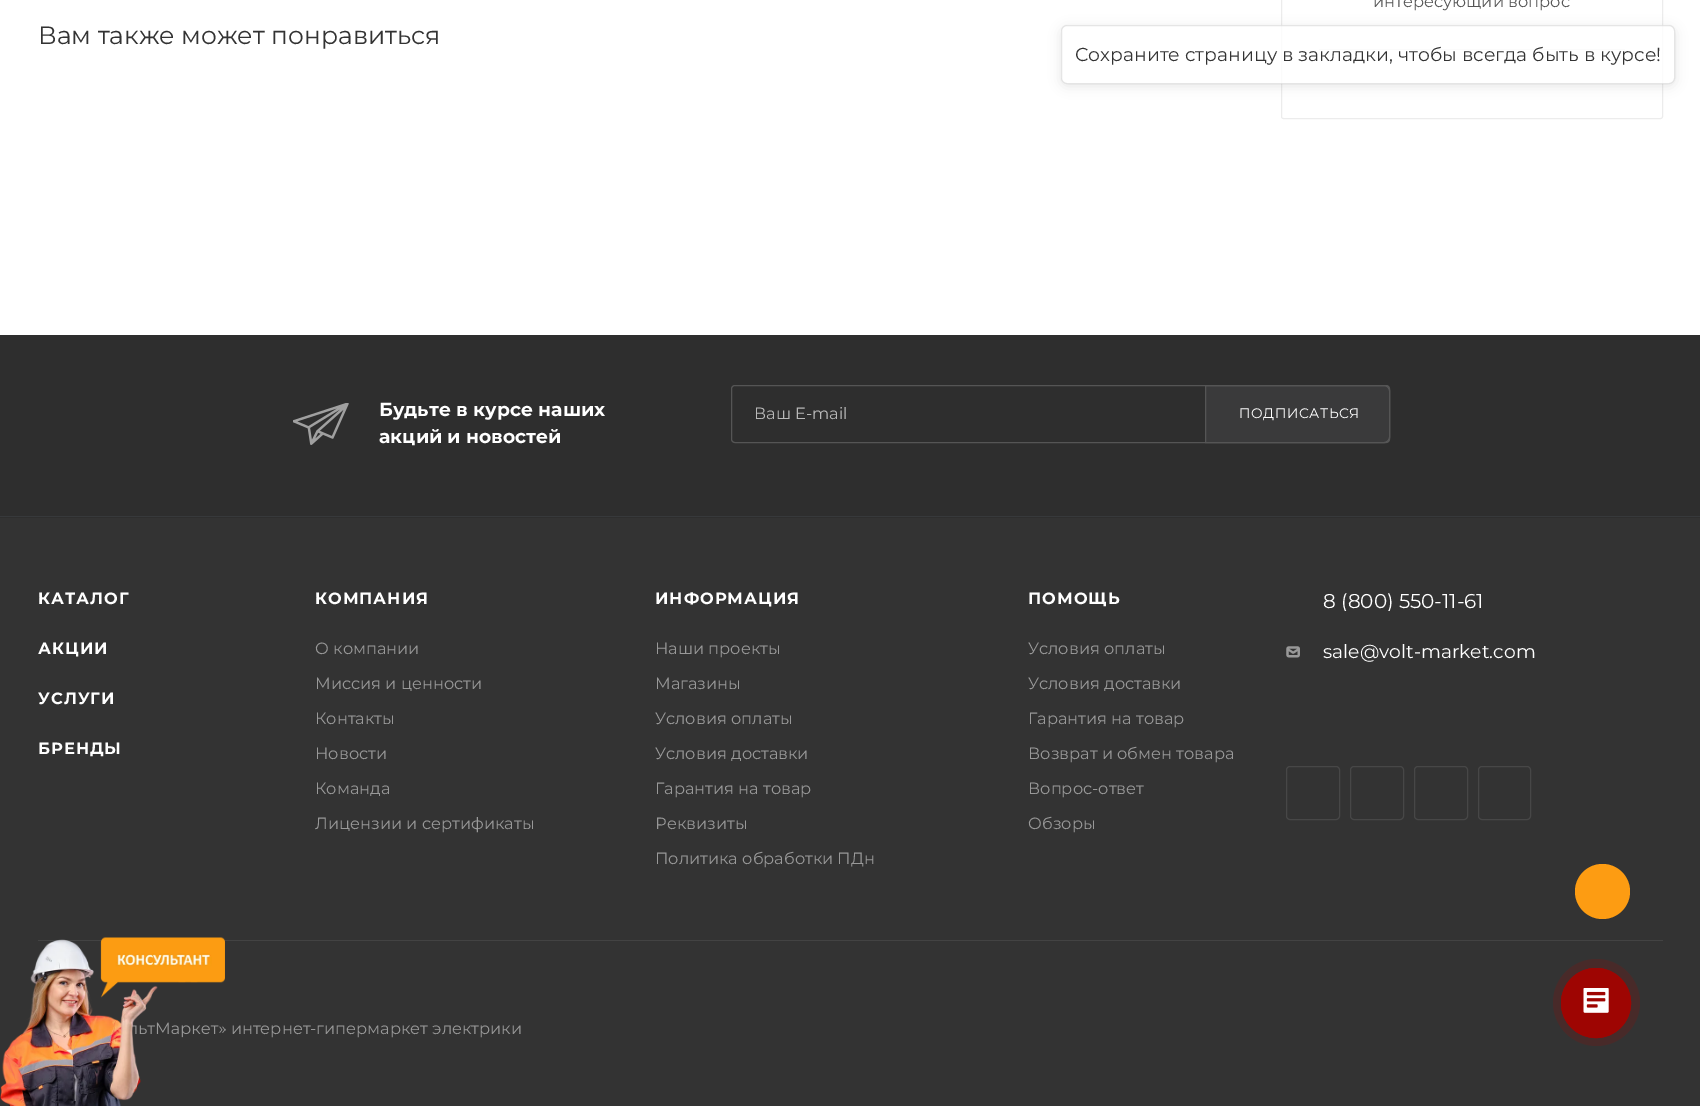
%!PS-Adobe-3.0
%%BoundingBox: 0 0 1700 1106
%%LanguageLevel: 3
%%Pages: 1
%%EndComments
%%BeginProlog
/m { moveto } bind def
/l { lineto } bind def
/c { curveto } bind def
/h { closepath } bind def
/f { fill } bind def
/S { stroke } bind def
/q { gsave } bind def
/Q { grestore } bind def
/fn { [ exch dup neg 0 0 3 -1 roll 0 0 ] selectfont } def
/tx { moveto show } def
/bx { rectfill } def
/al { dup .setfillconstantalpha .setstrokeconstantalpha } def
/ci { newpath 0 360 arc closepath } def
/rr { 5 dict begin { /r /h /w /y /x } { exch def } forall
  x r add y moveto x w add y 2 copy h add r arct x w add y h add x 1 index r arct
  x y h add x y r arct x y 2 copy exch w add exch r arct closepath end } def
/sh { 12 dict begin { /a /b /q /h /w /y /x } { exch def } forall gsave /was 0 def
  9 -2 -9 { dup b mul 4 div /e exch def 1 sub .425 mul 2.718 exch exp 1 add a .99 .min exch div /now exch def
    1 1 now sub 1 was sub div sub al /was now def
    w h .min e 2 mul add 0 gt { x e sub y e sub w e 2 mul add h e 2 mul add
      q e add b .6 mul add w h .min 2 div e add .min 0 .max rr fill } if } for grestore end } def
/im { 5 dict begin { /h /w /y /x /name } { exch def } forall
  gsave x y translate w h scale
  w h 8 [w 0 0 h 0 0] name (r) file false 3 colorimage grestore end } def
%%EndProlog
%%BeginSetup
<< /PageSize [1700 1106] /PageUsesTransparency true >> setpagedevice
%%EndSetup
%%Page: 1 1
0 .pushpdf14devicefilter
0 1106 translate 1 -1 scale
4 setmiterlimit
1 setgray
0 0 1700 1106 bx
0.925 setgray
1281.5 -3.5 381 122 2 rr S
/Montserrat-Regular 16.25 fn
0.333 setgray
(интересующий вопрос) 1373 7 tx
0.925 setgray
1319 49 306 1 bx
/Montserrat-Regular 25 fn
0.2 setgray
(Вам также может понравиться) 38 44 tx
q
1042 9 m 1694 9 l 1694 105 l 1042 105 l h 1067 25 m 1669 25 l 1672.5 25 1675 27.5 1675 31 c 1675 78 l 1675 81.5 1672.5 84 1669 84 c 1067 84 l 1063.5 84 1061 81.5 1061 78 c 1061 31 l 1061 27.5 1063.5 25 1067 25 c h eoclip newpath
0 setgray
1061 28 614 58 6 6 0.1 sh
Q
0.8 al
1 setgray
1061 25 614 59 6 rr f
0.1 al
0 setgray
1061.5 25.5 613 58 5.5 rr S
/Montserrat-Regular 18.75 fn
1 al
0.2 setgray
(Сохраните страницу в закладки, чтобы всегда быть в курсе!) 1075 61 tx
0.18 setgray
0 335 1700 183 bx
0.216 0.224 0.231 setrgbcolor
0 516 1700 1 bx
(image0.raw) 293 403 56 42 im
/Montserrat-Bold 18.75 fn
1 setgray
(Будьте в курсе наших) 379 416 tx
(акций и новостей) 379 443 tx
0.333 setgray
735 385.5 m 1384 385.5 l 1387 385.5 1389.5 388 1389.5 391 c 1389.5 437 l 1389.5 440 1387 442.5 1384 442.5 c 735 442.5 l 733 442.5 731.5 441 731.5 439 c 731.5 389 l 731.5 387 733 385.5 735 385.5 c h S
/Montserrat-Regular 16.25 fn
0.722 setgray
(Ваш E-mail) 754 419 tx
0.2 al
0.408 0.416 0.431 setrgbcolor
1205.5 385.5 m 1386 385.5 l 1388 385.5 1389.5 387 1389.5 389 c 1389.5 439 l 1389.5 441 1388 442.5 1386 442.5 c 1205.5 442.5 l h f
1 al
0.333 setgray
1205.5 385.5 m 1386 385.5 l 1388 385.5 1389.5 387 1389.5 389 c 1389.5 439 l 1389.5 441 1388 442.5 1386 442.5 c 1205.5 442.5 l h S
/Montserrat-Regular 13.75 fn
1 setgray
1239 418 m 0.6 0 (ПОДПИСАТЬСЯ) ashow
0.2 setgray
0 518 1700 588 bx
/Montserrat-Bold 16.25 fn
1 setgray
38 604 m 1 0 (КАТАЛОГ) ashow
38 654 m 1 0 (АКЦИИ) ashow
38 704 m 1 0 (УСЛУГИ) ashow
38 754 m 1 0 (БРЕНДЫ) ashow
315 604 m 1 0 (КОМПАНИЯ) ashow
/Montserrat-Regular 16.25 fn
0.6 setgray
(О компании) 315 654 tx
(Миссия и ценности) 315 689 tx
(Контакты) 315 724 tx
(Новости) 315 759 tx
(Команда) 315 794 tx
(Лицензии и сертификаты) 315 829 tx
/Montserrat-Bold 16.25 fn
1 setgray
655 604 m 1 0 (ИНФОРМАЦИЯ) ashow
/Montserrat-Regular 16.25 fn
0.6 setgray
(Наши проекты) 655 654 tx
(Магазины) 655 689 tx
(Условия оплаты) 655 724 tx
(Условия доставки) 655 759 tx
(Гарантия на товар) 655 794 tx
(Реквизиты) 655 829 tx
(Политика обработки ПДн) 655 864 tx
/Montserrat-Bold 16.25 fn
1 setgray
1028 604 m 1 0 (ПОМОЩЬ) ashow
/Montserrat-Regular 16.25 fn
0.6 setgray
(Условия оплаты) 1028 654 tx
(Условия доставки) 1028 689 tx
(Гарантия на товар) 1028 724 tx
(Возврат и обмен товара) 1028 759 tx
(Вопрос-ответ) 1028 794 tx
(Обзоры) 1028 829 tx
q
1286 591 214 20 rectclip
/Montserrat-Regular 20 fn
1 setgray
(8 \(800\) 550-11-61) 1323 608 tx
Q
(image1.raw) 1286 646 14 12 im
/Montserrat-Regular 18.75 fn
1 setgray
(sale@volt-market.com) 1323 658 tx
0.278 setgray
1286.5 766.5 53 53 3.5 rr S
1350.5 766.5 53 53 3.5 rr S
1414.5 766.5 53 53 3.5 rr S
1478.5 766.5 52 53 3.5 rr S
0.263 setgray
38 940 1625 1 bx
/Montserrat-Regular 16.25 fn
0.6 setgray
(льтМаркет» интернет-гипермаркет электрики) 128 1034 tx
0.992 0.612 0.071 setrgbcolor
1602.5 891.5 27.5 ci f
(image2.raw) 0 937 225 169 im
0.282 0.165 0.161 setrgbcolor
1596.5 1002.5 43.5 ci f
0.62 0.02 0.008 setrgbcolor
1596 1003 34.5 ci S
1596 1003 35 ci f
(image3.raw) 1583 988 26 25 im
.poppdf14devicefilter showpage
%%EOF
